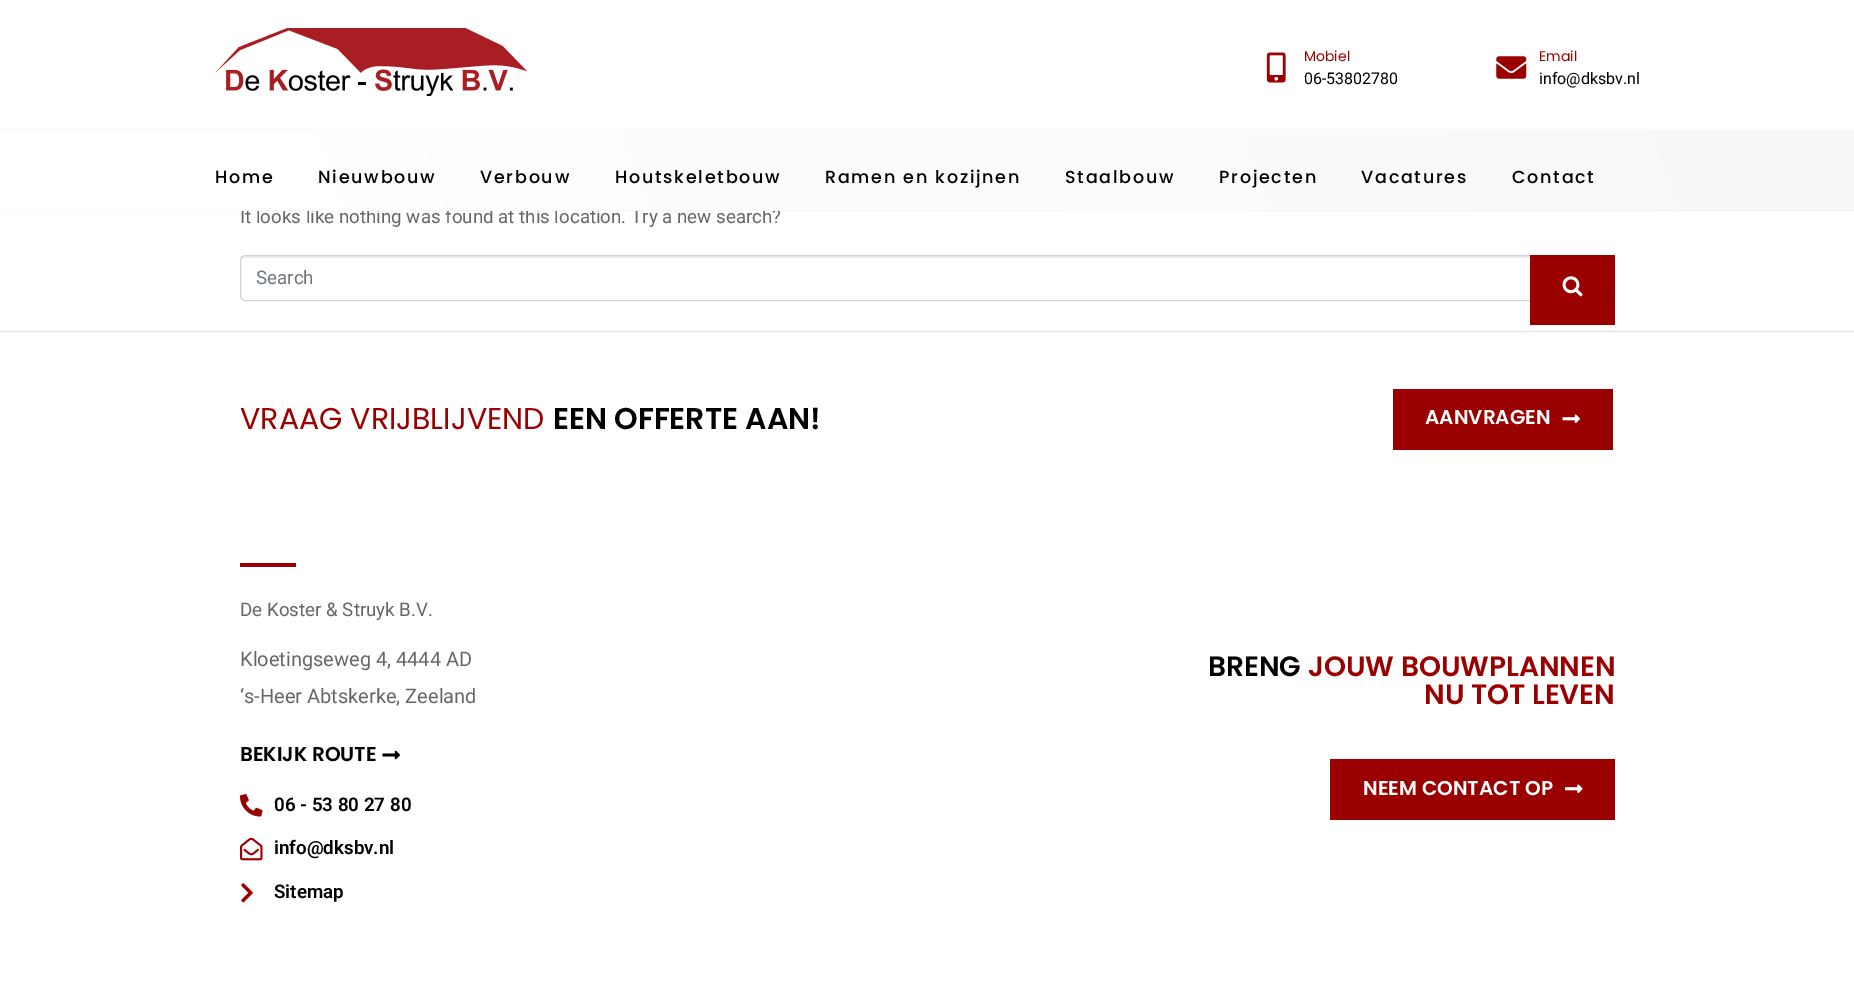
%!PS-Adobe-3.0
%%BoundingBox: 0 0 1854 991
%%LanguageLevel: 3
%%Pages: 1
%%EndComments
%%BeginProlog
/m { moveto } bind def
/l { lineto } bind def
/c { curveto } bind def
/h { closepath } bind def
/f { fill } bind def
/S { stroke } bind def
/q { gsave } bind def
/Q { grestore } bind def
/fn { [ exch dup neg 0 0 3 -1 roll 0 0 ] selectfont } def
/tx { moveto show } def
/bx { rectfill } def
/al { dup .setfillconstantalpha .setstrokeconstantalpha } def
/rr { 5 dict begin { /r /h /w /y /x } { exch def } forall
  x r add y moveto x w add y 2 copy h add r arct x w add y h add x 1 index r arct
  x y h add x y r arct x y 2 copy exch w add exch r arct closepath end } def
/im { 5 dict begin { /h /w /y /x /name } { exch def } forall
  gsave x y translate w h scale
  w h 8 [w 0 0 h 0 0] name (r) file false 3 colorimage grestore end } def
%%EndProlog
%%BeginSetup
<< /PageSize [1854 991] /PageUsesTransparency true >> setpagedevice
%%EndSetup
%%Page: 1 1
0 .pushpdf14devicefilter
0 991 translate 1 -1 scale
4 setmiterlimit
1 setgray
0 0 1854 991 bx
0.976 setgray
0 129 1854 1 bx
(image0.raw) 215 28 313 68 im
(image1.raw) 1266 52 20 31 im
/Poppins-Regular 14 fn
0.608 0 0 setrgbcolor
(Mobiel) 1304 61 tx
/Roboto-Regular 16 fn
0 setgray
(06-53802780) 1304 84 tx
(image2.raw) 1496 56 31 23 im
/Poppins-Regular 14 fn
0.608 0 0 setrgbcolor
(Email) 1539 61 tx
/Roboto-Regular 16 fn
0 setgray
(info@dksbv.nl) 1539 84 tx
/Roboto-Regular 18.75 fn
0.4 setgray
(It looks like nothing was found at this location. Try a new search?) 240 223 tx
q 241 130 m 1854 130 l 1854 210 l 241 210 l h clip newpath
<< /ShadingType 2 /ColorSpace /DeviceRGB /Coords [96 473 1759 -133] /Extend [true true] /Function << /FunctionType 3 /Domain [0 1] /Functions [<< /FunctionType 2 /Domain [0 1] /C0 [1 1 1] /C1 [1 1 1] /N 1 >> << /FunctionType 2 /Domain [0 1] /C0 [1 1 1] /C1 [0.973 0.973 0.973] /N 1 >>] /Bounds [0.13] /Encode [0 1 0 1] >> >> shfill Q
q 241 210 m 1854 210 l 1854 211 l 241 211 l h clip newpath
<< /ShadingType 2 /ColorSpace /DeviceRGB /Coords [96 553 1759 -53] /Extend [true true] /Function << /FunctionType 3 /Domain [0 1] /Functions [<< /FunctionType 2 /Domain [0 1] /C0 [1 1 1] /C1 [1 1 1] /N 1 >> << /FunctionType 2 /Domain [0 1] /C0 [1 1 1] /C1 [0.973 0.973 0.973] /N 1 >>] /Bounds [0.13] /Encode [0 1 0 1] >> >> shfill Q
0.2 al
0.878 setgray
0 210 1854 1 bx
/Poppins-Medium 17.5 fn
1 al
0 setgray
215 183 m 1.75 0 (Home) ashow
318 183 m 1.75 0 (Nieuwbouw) ashow
480 183 m 1.75 0 (Verbouw) ashow
615 183 m 1.75 0 (Houtskeletbouw) ashow
825 183 m 1.75 0 (Ramen en kozijnen) ashow
1065 183 m 1.75 0 (Staalbouw) ashow
1219 183 m 1.75 0 (Projecten) ashow
1361 183 m 1.75 0 (Vacatures) ashow
1512 183 m 1.75 0 (Contact) ashow
0.925 setgray
245 258 m 1610 258 l 1612 258 1614 259 1614 261 c 1614 260 l 1614 258 1612 256 1610 256 c 245 256 l 243 256 241 258 241 260 c 241 261 l 241 259 243 258 245 258 c h f
0.808 0.831 0.855 setrgbcolor
240.5 255.5 1374 45 4.5 rr S
/Roboto-Regular 18.75 fn
0.424 0.459 0.49 setrgbcolor
(Search) 256 284 tx
0.608 0 0 setrgbcolor
1530 255 85 70 bx
(image3.raw) 1562 276 21 21 im
0.878 setgray
0 331 1854 1 bx
/Poppins-Regular 30 fn
0.608 0 0 setrgbcolor
(VRAAG VRIJBLIJVEND) 240 429 tx
/Poppins-SemiBold 30 fn
0 setgray
(EEN OFFERTE AAN!) 553 429 tx
0.608 0 0 setrgbcolor
1393 389 220 61 bx
/Poppins-SemiBold 20 fn
1 setgray
(AANVRAGEN) 1425 424 tx
(image4.raw) 1562 414 18 9 im
0.608 0 0 setrgbcolor
240 563 56 4 bx
/Roboto-Regular 18.75 fn
0.4 setgray
(De Koster & Struyk B.V.) 240 616 tx
/Roboto-Regular 20 fn
(Kloetingseweg 4, 4444 AD) 240 666 tx
(‘s-Heer Abtskerke, Zeeland) 240 703 tx
/Poppins-SemiBold 20 fn
0 setgray
(BEKIJK ROUTE) 240 761 tx
(image5.raw) 382 750 18 10 im
(image6.raw) 240 794 23 23 im
/Roboto-SemiBold 18.75 fn
(06 - 53 80 27 80) 274 811 tx
(image7.raw) 240 837 23 24 im
(info@dksbv.nl) 274 854 tx
(image8.raw) 241 883 12 20 im
(Sitemap) 274 898 tx
/Poppins-SemiBold 28 fn
(BRENG) 1208 676 tx
0.608 0 0 setrgbcolor
(JOUW BOUWPLANNEN) 1308 676 tx
(NU TOT LEVEN) 1424 704 tx
1330 759 285 61 bx
/Poppins-SemiBold 20 fn
1 setgray
(NEEM CONTACT OP) 1363 795 tx
(image9.raw) 1565 784 18 9 im
.poppdf14devicefilter showpage
%%EOF
